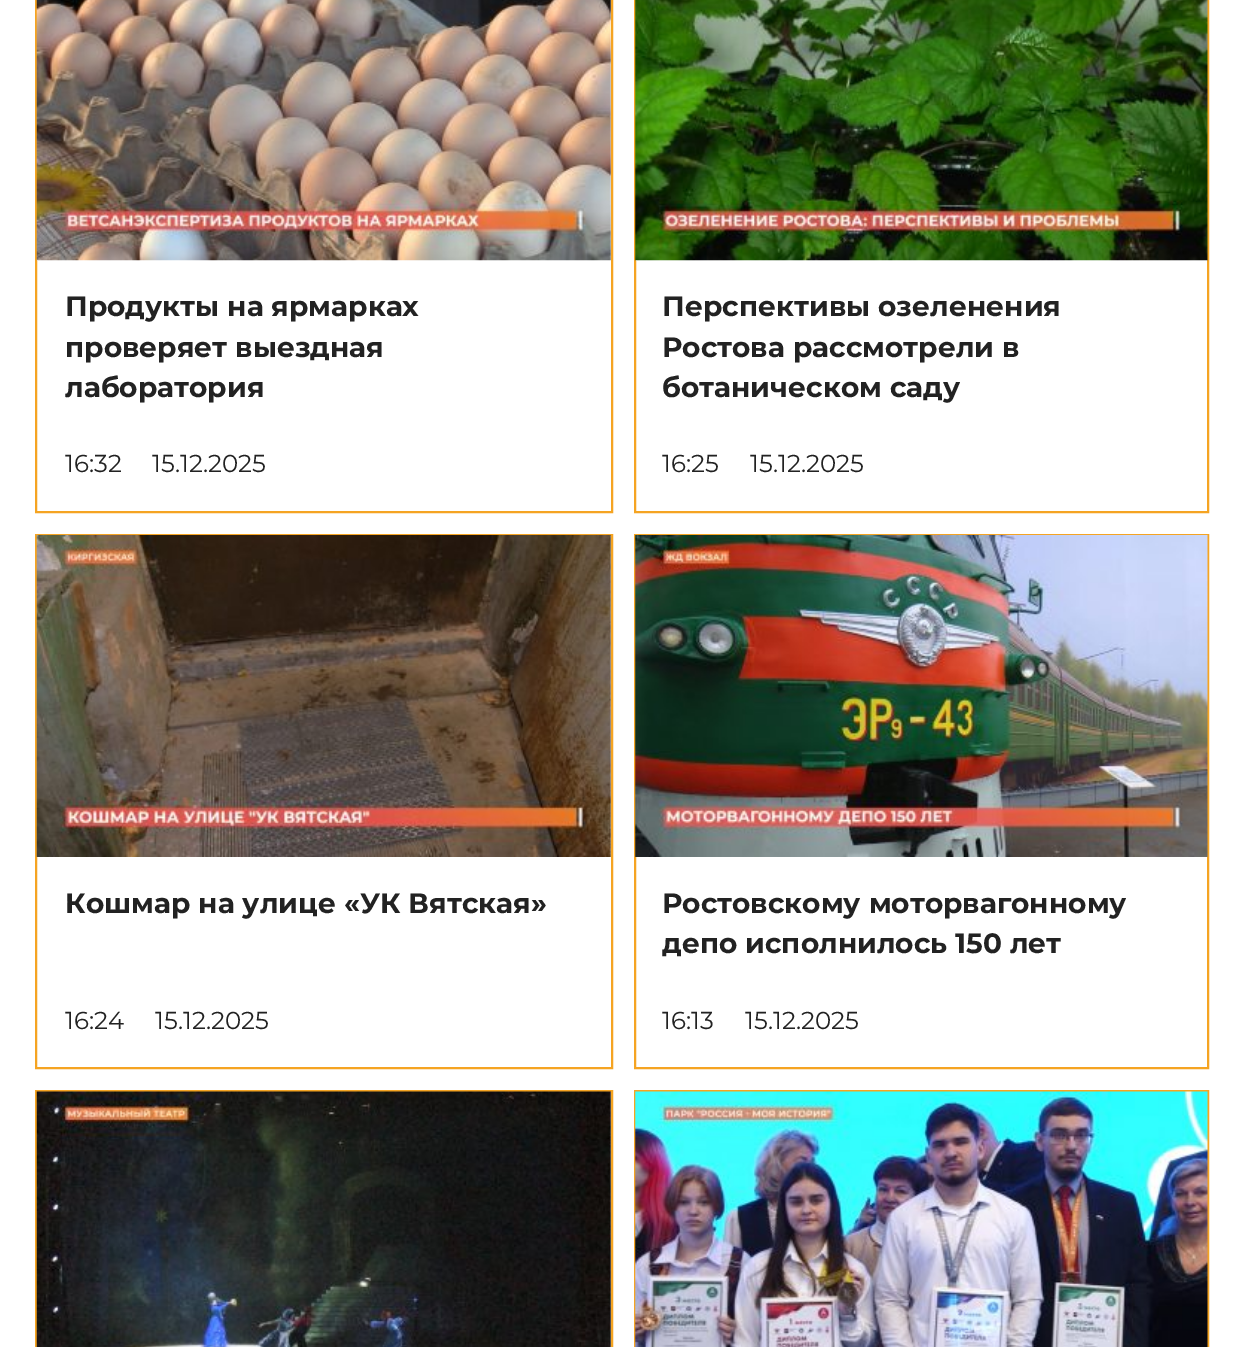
%!PS-Adobe-3.0
%%BoundingBox: 0 0 1243 1347
%%LanguageLevel: 3
%%Pages: 1
%%EndComments
%%BeginProlog
/w { setlinewidth } bind def
/fn { [ exch dup neg 0 0 3 -1 roll 0 0 ] selectfont } def
/tx { moveto show } def
/bx { rectfill } def
/im { 5 dict begin { /h /w /y /x /name } { exch def } forall
  gsave x y translate w h scale
  w h 8 [w 0 0 h 0 0] name (r) file false 3 colorimage grestore end } def
%%EndProlog
%%BeginSetup
<< /PageSize [1243 1347] >> setpagedevice
%%EndSetup
%%Page: 1 1
0 1347 translate 1 -1 scale
4 setmiterlimit
1 setgray
0 0 1243 1347 bx
0.961 0.643 0.133 setrgbcolor
2 w
36 -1 576 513 rectstroke
(image0.raw) 36 0 575 261 im
/Montserrat-Bold 28 fn
0.133 setgray
(Продукты на ярмарках) 65 316 tx
(проверяет выездная) 65 357 tx
(лаборатория) 65 397 tx
/Montserrat-Regular 24.5 fn
(16:32) 65 472 tx
(15.12.2025) 152 472 tx
0.961 0.643 0.133 setrgbcolor
635 -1 573 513 rectstroke
(image1.raw) 635 0 573 261 im
/Montserrat-Bold 28 fn
0.133 setgray
(Перспективы озеленения) 662 316 tx
(Ростова рассмотрели в) 662 357 tx
(ботаническом саду) 662 397 tx
/Montserrat-Regular 24.5 fn
(16:25) 662 472 tx
(15.12.2025) 750 472 tx
0.961 0.643 0.133 setrgbcolor
36 535 576 533 rectstroke
(image2.raw) 36 535 575 322 im
/Montserrat-Bold 28 fn
0.133 setgray
(Кошмар на улице «УК Вятская») 65 913 tx
/Montserrat-Regular 24.5 fn
(16:24) 65 1029 tx
(15.12.2025) 155 1029 tx
0.961 0.643 0.133 setrgbcolor
635 535 573 533 rectstroke
(image3.raw) 635 535 573 322 im
/Montserrat-Bold 28 fn
0.133 setgray
(Ростовскому моторвагонному) 662 913 tx
(депо исполнилось 150 лет) 662 953 tx
/Montserrat-Regular 24.5 fn
(16:13) 662 1029 tx
(15.12.2025) 745 1029 tx
0.961 0.643 0.133 setrgbcolor
36 1091 576 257 rectstroke
(image4.raw) 36 1091 575 256 im
635 1091 573 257 rectstroke
(image5.raw) 635 1091 573 256 im
showpage
%%EOF
